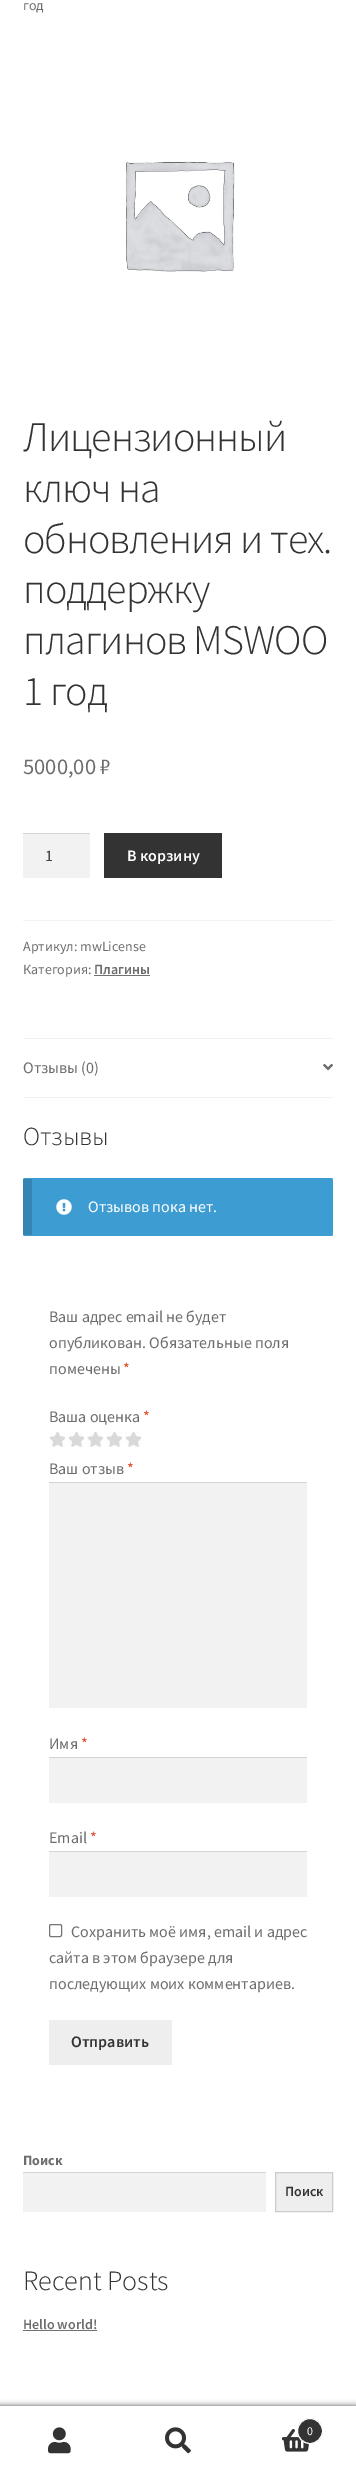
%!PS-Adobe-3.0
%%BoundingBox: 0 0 356 2475
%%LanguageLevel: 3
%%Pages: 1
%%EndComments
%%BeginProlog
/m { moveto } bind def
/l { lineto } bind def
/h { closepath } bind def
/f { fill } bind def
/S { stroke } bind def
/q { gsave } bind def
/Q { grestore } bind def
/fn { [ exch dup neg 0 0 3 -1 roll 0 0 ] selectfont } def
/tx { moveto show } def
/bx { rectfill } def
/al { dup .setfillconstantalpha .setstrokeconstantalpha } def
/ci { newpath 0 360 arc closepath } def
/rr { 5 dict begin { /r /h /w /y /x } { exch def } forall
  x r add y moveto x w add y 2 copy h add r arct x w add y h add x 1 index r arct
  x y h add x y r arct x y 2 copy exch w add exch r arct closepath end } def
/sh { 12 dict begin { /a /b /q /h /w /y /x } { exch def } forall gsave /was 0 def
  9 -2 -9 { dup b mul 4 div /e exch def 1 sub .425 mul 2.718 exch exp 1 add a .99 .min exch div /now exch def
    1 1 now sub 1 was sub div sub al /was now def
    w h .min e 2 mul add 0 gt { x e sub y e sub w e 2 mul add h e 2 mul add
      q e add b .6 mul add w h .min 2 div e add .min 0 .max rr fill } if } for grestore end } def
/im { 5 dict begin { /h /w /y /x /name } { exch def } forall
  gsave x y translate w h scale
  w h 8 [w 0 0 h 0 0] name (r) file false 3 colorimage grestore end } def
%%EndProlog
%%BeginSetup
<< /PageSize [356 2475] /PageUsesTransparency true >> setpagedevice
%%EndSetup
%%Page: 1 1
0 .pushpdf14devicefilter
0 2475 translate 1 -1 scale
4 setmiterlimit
1 setgray
0 0 356 2475 bx
/SourceSansPro-Regular 14 fn
0.427 setgray
(год) 23 10 tx
(image0.raw) 125 161 110 111 im
/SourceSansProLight-Light 42 fn
0.2 setgray
23 451 m -1 0 (Лицензионный) ashow
23 502 m -1 0 (ключ на) ashow
23 553 m -1 0 (обновления и тех.) ashow
23 603 m -1 0 (поддержку) ashow
23 654 m -1 0 (плагинов MSWOO) ashow
23 705 m -1 0 (1 год) ashow
/SourceSansPro-Regular 22.5 fn
0.427 setgray
(5000,00 ₽) 23 774 tx
0.949 setgray
23 834 67 44 bx
0.831 setgray
23 833 67 1 bx
/SourceSansPro-Regular 16 fn
0.263 0.271 0.294 setrgbcolor
(1) 45 861 tx
0.2 setgray
104 833 118 45 bx
/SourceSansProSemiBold-SemiBold 16 fn
1 setgray
(В корзину) 127 861 tx
0.949 setgray
23 920 310 1 bx
/SourceSansPro-Regular 14 fn
0.427 setgray
(Артикул: mwLicense) 23 951 tx
(Категория:) 23 974 tx
/SourceSansProSemiBold-SemiBold 14 fn
(Плагины) 94 974 tx
0.447 setgray
94 975 56 1 bx
0.949 setgray
23 1038 310 1 bx
23 1097 310 1 bx
/SourceSansPro-Regular 16 fn
0.427 setgray
(Отзывы \(0\)) 23 1073 tx
(image1.raw) 323 1063 10 8 im
/SourceSansProLight-Light 26 fn
0.2 setgray
(Отзывы) 23 1145 tx
0.239 0.612 0.824 setrgbcolor
23 1178 310 58 2 rr f
0.15 al
0 setgray
23 1179 9 56 bx
1 al
(image2.raw) 56 1199 16 16 im
/SourceSansPro-Regular 16 fn
1 setgray
(Отзывов пока нет.) 88 1212 tx
0.427 setgray
(Ваш адрес email не будет) 49 1322 tx
(опубликован. Обязательные поля) 49 1348 tx
0.886 0.251 0.11 setrgbcolor
(*) 123 1374 tx
0.427 setgray
(помечены) 49 1374 tx
(Ваша оценка) 49 1422 tx
0.886 0.251 0.11 setrgbcolor
(*) 143 1422 tx
(image3.raw) 49 1432 16 15 im
(image3.raw) 68 1432 16 15 im
(image3.raw) 87 1432 16 15 im
(image3.raw) 106 1432 16 15 im
(image3.raw) 125 1432 16 15 im
0.427 setgray
(Ваш отзыв) 49 1474 tx
0.886 0.251 0.11 setrgbcolor
(*) 127 1474 tx
0.949 setgray
49 1483 258 225 bx
0.831 setgray
49 1482 258 1 bx
0.427 setgray
(Имя) 49 1749 tx
0.886 0.251 0.11 setrgbcolor
(*) 81 1749 tx
0.949 setgray
49 1758 258 45 bx
0.831 setgray
49 1757 258 1 bx
0.427 setgray
(Email) 49 1843 tx
0.886 0.251 0.11 setrgbcolor
(*) 90 1843 tx
0.949 setgray
49 1852 258 45 bx
0.831 setgray
49 1851 258 1 bx
0.463 setgray
49.5 1924.5 12 12 1.5 rr S
0.427 setgray
(Сохранить моё имя, email и адрес) 71 1937 tx
(сайта в этом браузере для) 49 1963 tx
(последующих моих комментариев.) 49 1989 tx
0.933 setgray
49 2020 123 45 bx
/SourceSansProSemiBold-SemiBold 16 fn
0.2 setgray
(Отправить) 71 2047 tx
/SourceSansPro-Bold 14 fn
0.427 setgray
(Поиск) 23 2165 tx
0.949 setgray
23 2173 243 39 bx
0.831 setgray
23 2172 243 1 bx
0.933 setgray
275.5 2172.5 m 332.5 2172.5 l 332.5 2211.5 l 275.5 2211.5 l h q f Q
0.8 setgray
S
/SourceSansProSemiBold-SemiBold 14 fn
0.2 setgray
(Поиск) 285 2196 tx
/SourceSansProLight-Light 28 fn
(Recent Posts) 23 2290 tx
/SourceSansProSemiBold-SemiBold 14 fn
0.427 setgray
(Hello world!) 23 2329 tx
0.447 setgray
23 2330 74 1 bx
0 setgray
0 2406 356 69 0 3 0.7 sh
1 setgray
0 2406 356 1 bx
0 2407 356 68 bx
(image4.raw) 48 2427 23 27 im
(image5.raw) 165 2427 26 27 im
(image6.raw) 282 2429 28 23 im
0.2 setgray
310 2431 12.5 ci q f Q
1 setgray
S
/SourceSansPro-Regular 12 fn
(0) 307 2435 tx
.poppdf14devicefilter showpage
%%EOF
